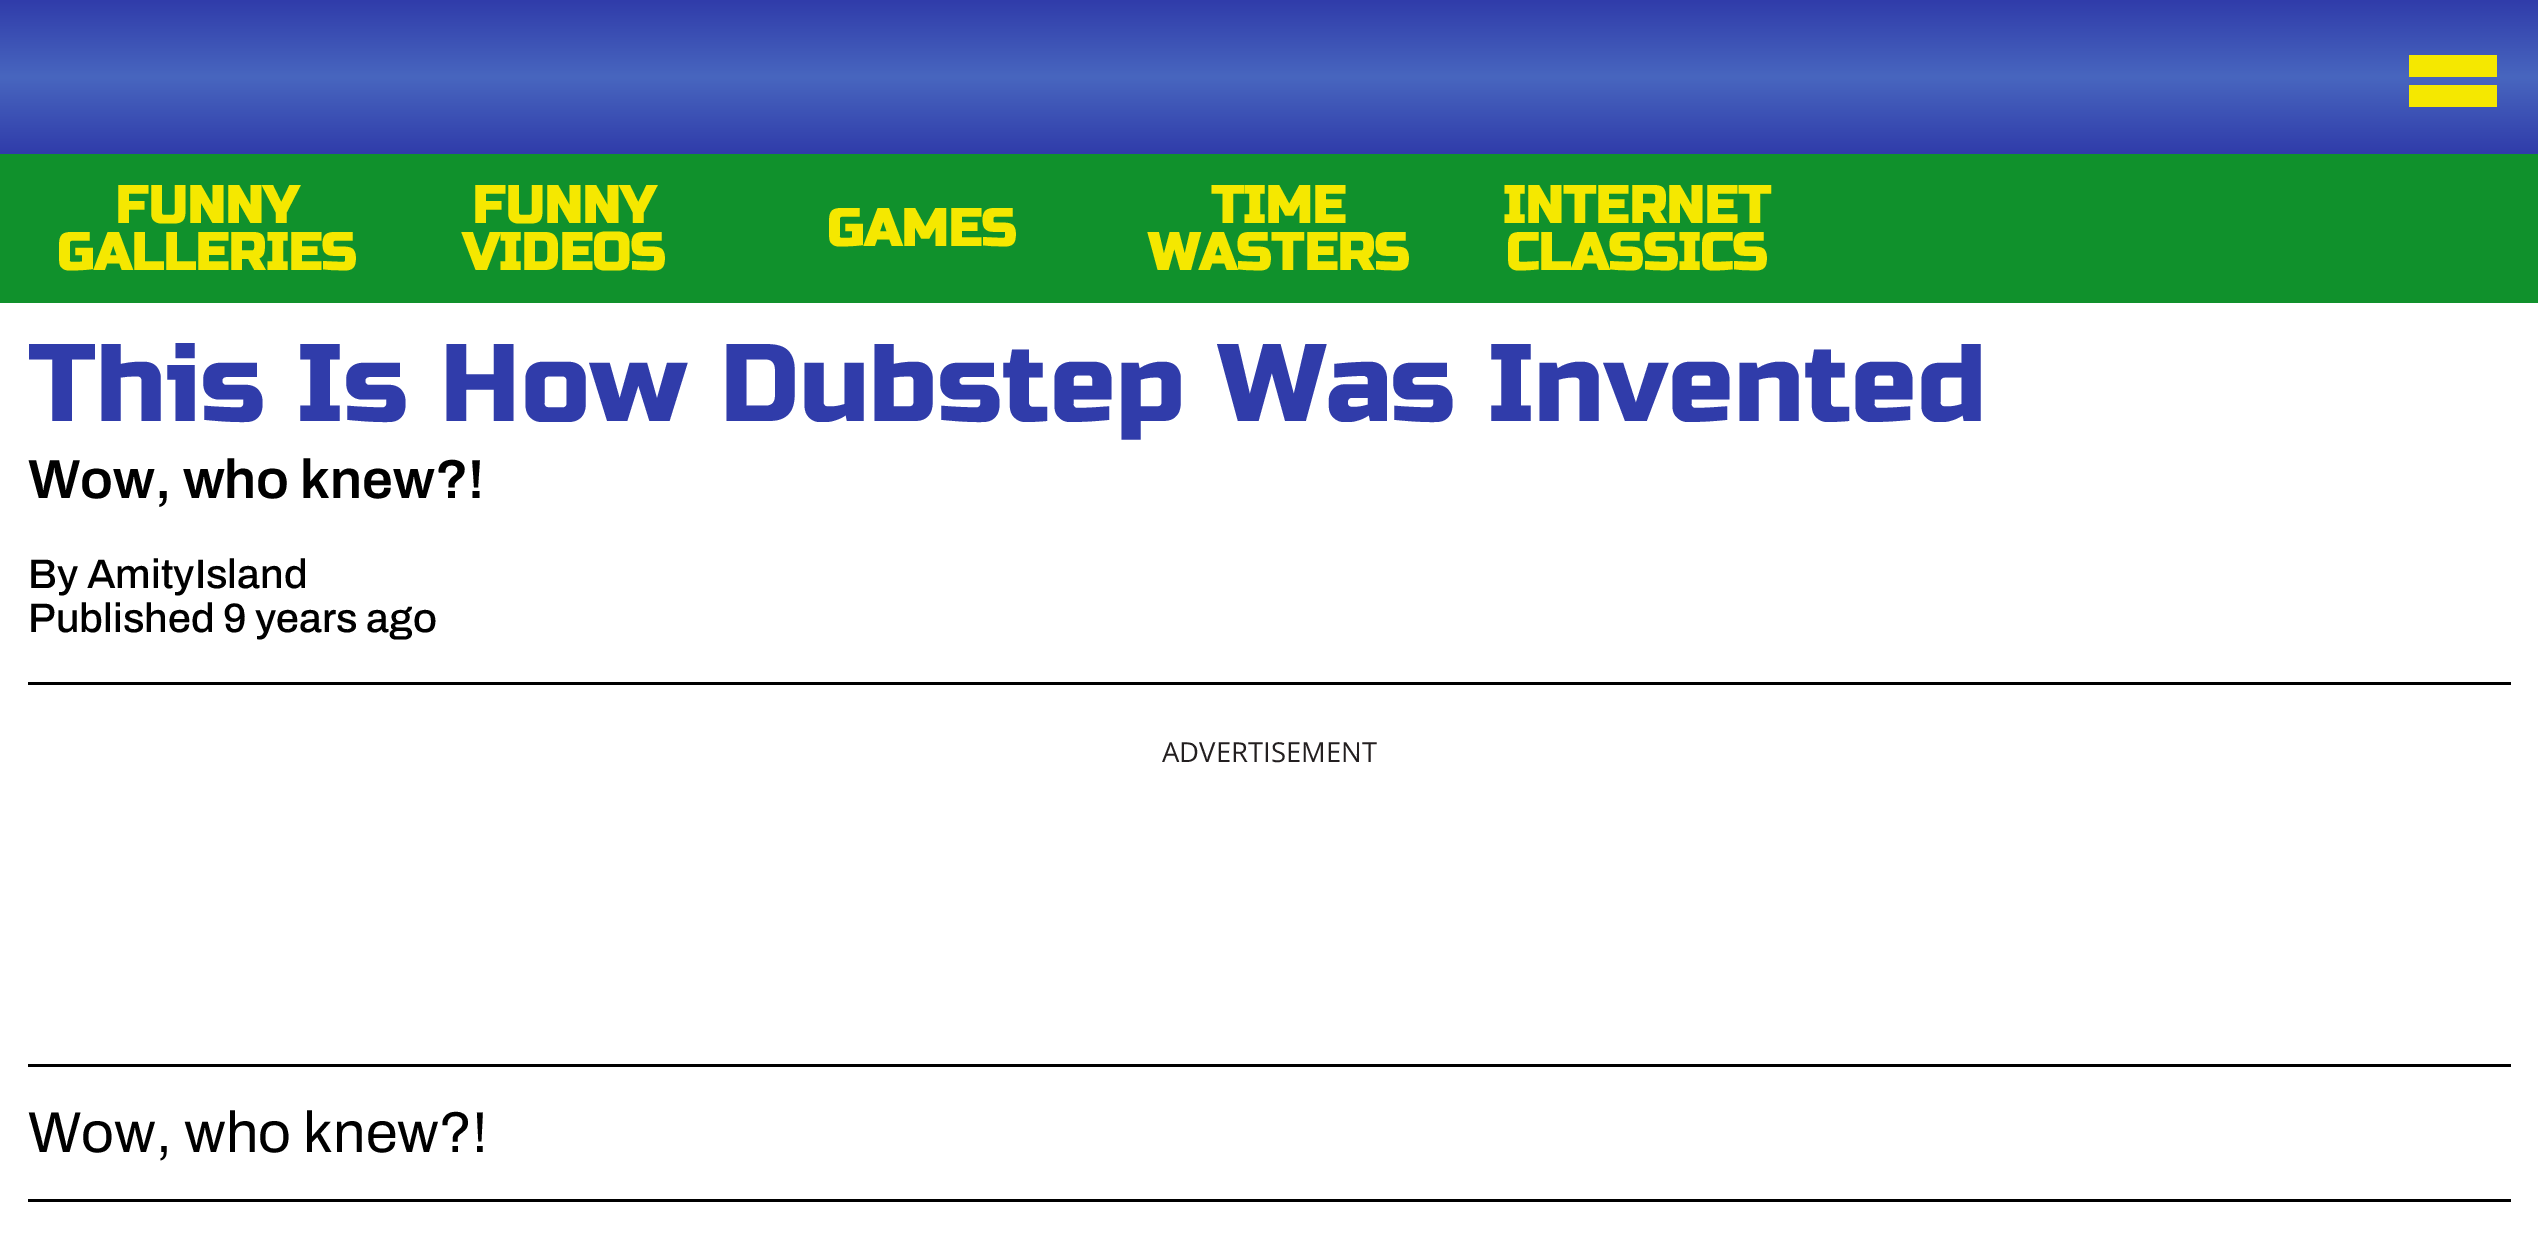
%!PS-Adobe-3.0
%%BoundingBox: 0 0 2538 1253
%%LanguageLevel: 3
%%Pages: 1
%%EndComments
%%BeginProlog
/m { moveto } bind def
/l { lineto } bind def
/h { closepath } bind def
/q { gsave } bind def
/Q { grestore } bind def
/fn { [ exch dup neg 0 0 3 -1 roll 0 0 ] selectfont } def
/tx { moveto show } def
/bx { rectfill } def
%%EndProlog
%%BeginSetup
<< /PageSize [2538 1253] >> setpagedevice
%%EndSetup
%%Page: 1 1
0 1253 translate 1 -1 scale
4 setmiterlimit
1 setgray
0 0 2538 1253 bx
q 0 0 m 2538 0 l 2538 154 l 0 154 l h clip newpath
<< /ShadingType 2 /ColorSpace /DeviceRGB /Coords [1269 0 1269 154] /Extend [true true] /Function << /FunctionType 3 /Domain [0 1] /Functions [<< /FunctionType 2 /Domain [0 1] /C0 [0.188 0.235 0.667] /C1 [0.282 0.4 0.749] /N 1 >> << /FunctionType 2 /Domain [0 1] /C0 [0.282 0.4 0.749] /C1 [0.188 0.235 0.667] /N 1 >>] /Bounds [0.5] /Encode [0 1 0 1] >> >> shfill Q
0.961 0.91 0 setrgbcolor
2409 55 88 22 bx
2409 85 88 22 bx
0.063 0.569 0.173 setrgbcolor
0 154 2538 149 bx
/RussoOne-Bold 52.25 fn
0.961 0.91 0 setrgbcolor
(FUNNY) 115 223 tx
(GALLERIES) 57 270 tx
(FUNNY) 472 223 tx
(VIDEOS) 462 270 tx
(GAMES) 827 246 tx
(TIME) 1211 223 tx
(WASTERS) 1148 270 tx
(INTERNET) 1503 223 tx
(CLASSICS) 1506 270 tx
/RussoOne-Regular 110 fn
0.188 0.235 0.667 setrgbcolor
(This Is How Dubstep Was Invented) 28 421 tx
/Archivo-SemiBold 55 fn
0 setgray
(Wow, who knew?!) 28 498 tx
/Archivo-Medium 41.25 fn
(By AmityIsland) 28 588 tx
(Published 9 years ago) 28 632 tx
28 682 2483 3 bx
28 1064 2483 3 bx
/OpenSans-Regular 27.5 fn
0.137 0.122 0.125 setrgbcolor
(ADVERTISEMENT) 1162 762 tx
/Archivo-Regular 57.75 fn
0 setgray
(Wow, who knew?!) 28 1152 tx
28 1199 2483 3 bx
showpage
%%EOF
